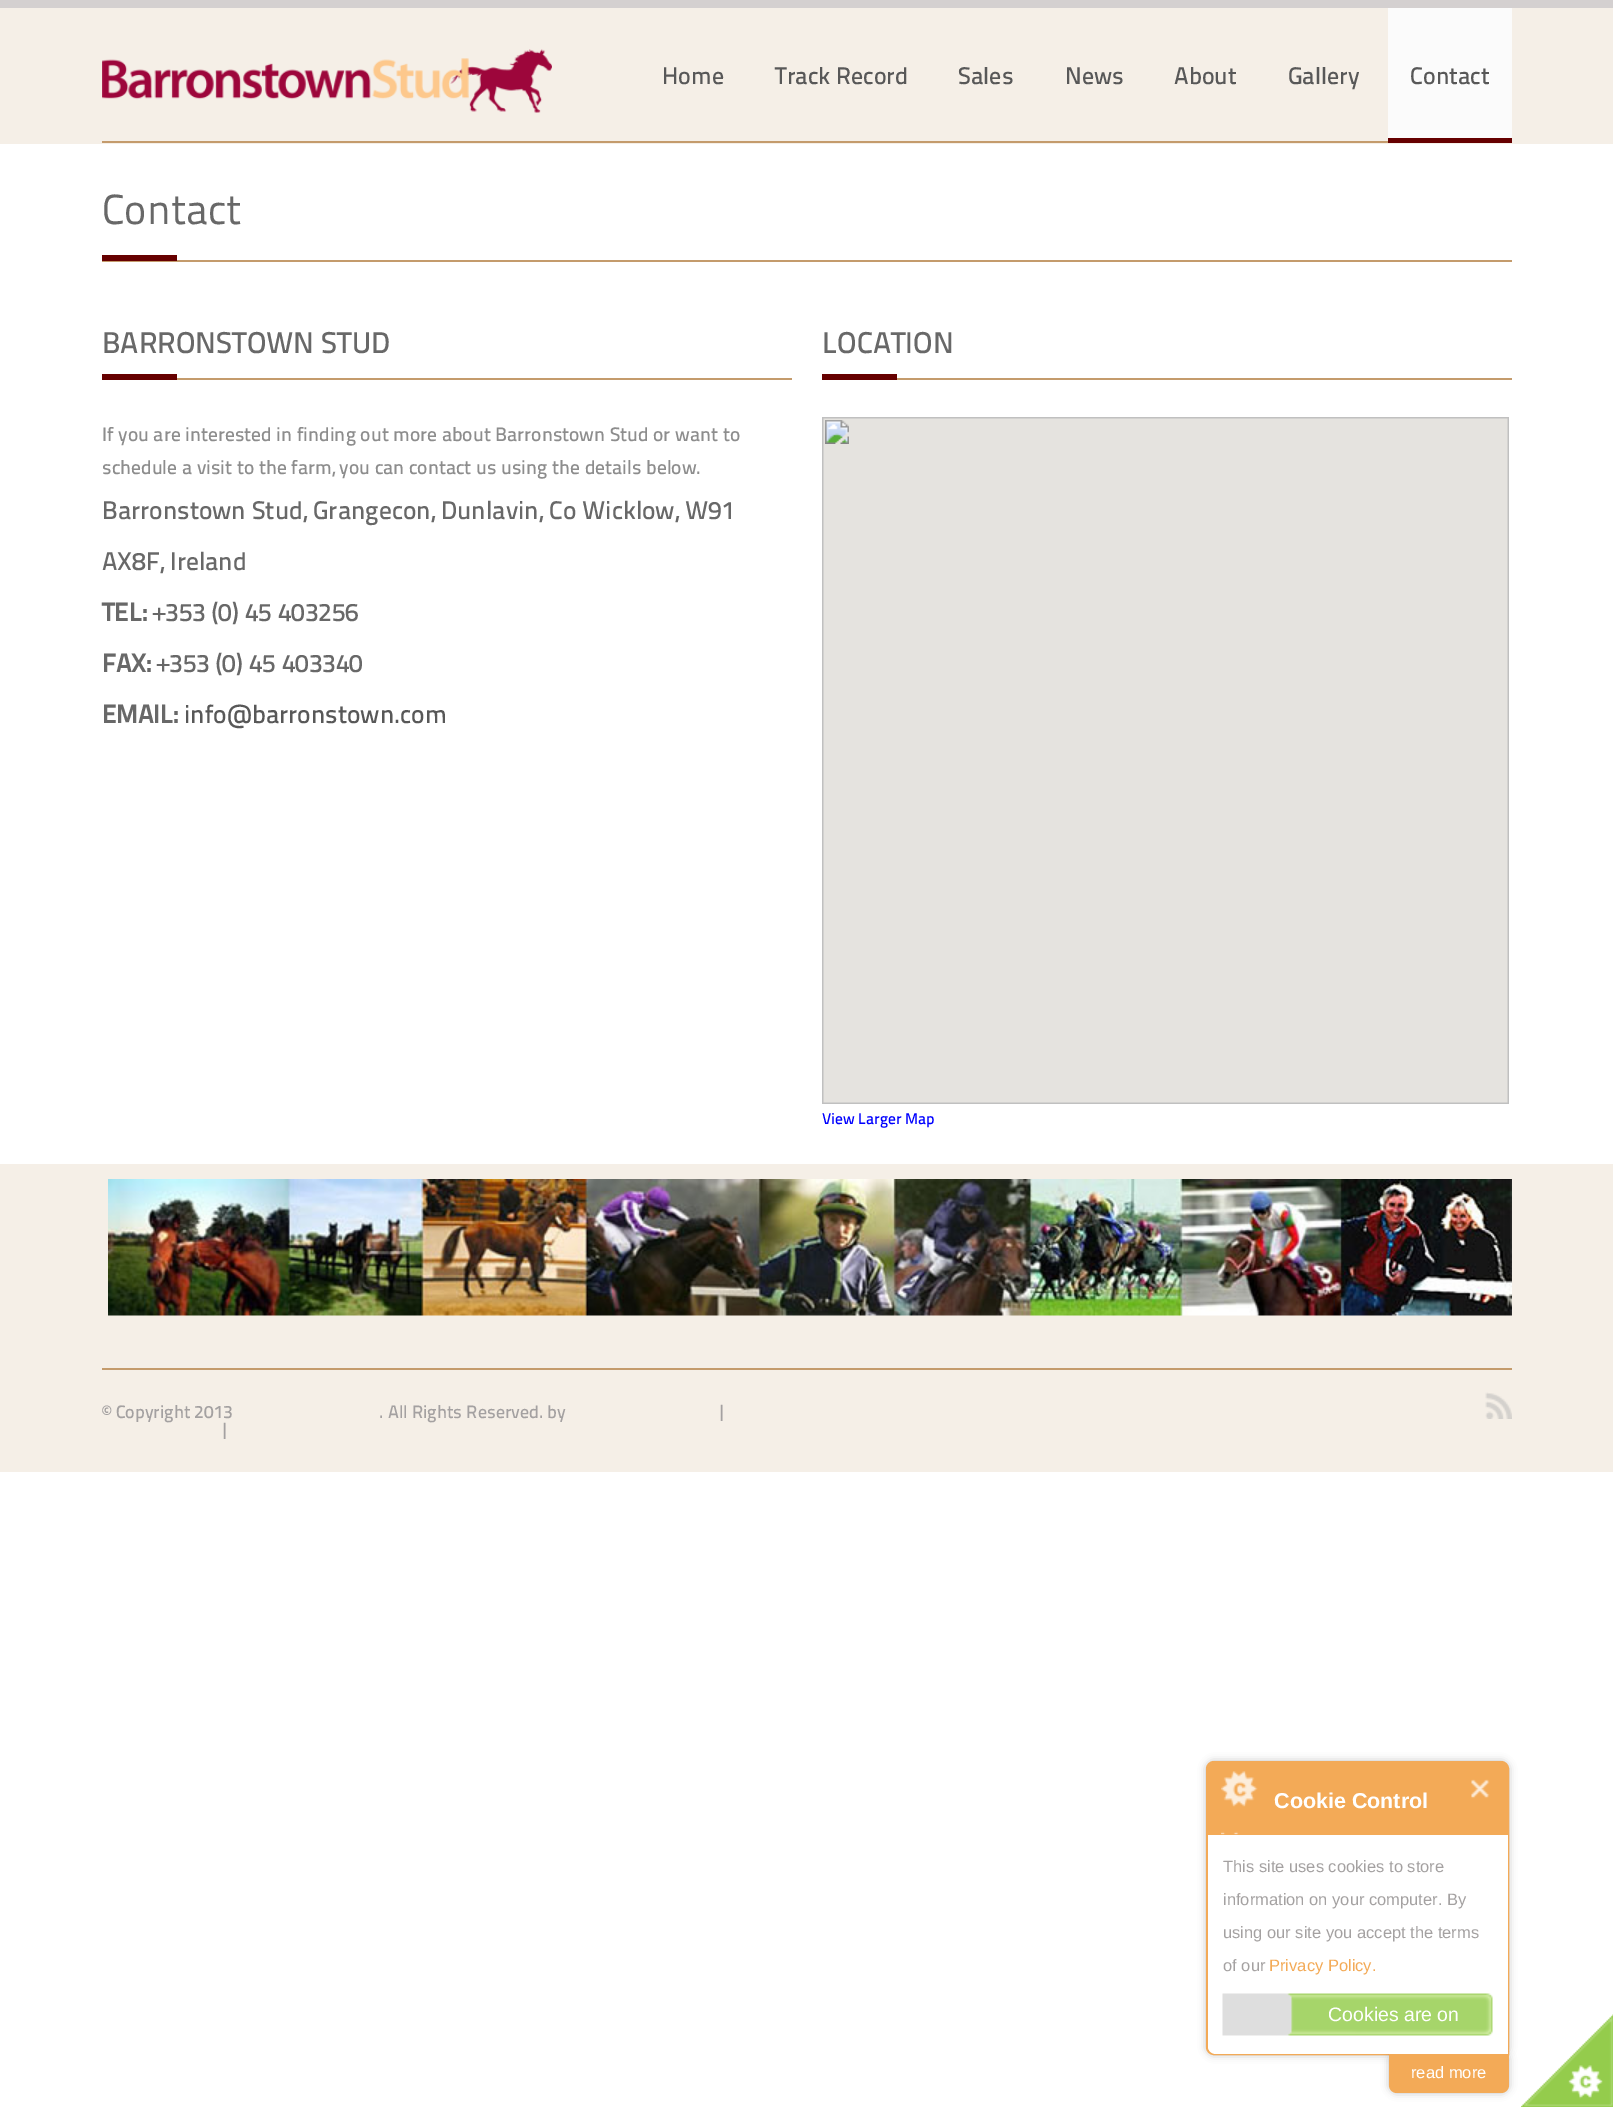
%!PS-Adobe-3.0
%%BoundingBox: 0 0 1613 2107
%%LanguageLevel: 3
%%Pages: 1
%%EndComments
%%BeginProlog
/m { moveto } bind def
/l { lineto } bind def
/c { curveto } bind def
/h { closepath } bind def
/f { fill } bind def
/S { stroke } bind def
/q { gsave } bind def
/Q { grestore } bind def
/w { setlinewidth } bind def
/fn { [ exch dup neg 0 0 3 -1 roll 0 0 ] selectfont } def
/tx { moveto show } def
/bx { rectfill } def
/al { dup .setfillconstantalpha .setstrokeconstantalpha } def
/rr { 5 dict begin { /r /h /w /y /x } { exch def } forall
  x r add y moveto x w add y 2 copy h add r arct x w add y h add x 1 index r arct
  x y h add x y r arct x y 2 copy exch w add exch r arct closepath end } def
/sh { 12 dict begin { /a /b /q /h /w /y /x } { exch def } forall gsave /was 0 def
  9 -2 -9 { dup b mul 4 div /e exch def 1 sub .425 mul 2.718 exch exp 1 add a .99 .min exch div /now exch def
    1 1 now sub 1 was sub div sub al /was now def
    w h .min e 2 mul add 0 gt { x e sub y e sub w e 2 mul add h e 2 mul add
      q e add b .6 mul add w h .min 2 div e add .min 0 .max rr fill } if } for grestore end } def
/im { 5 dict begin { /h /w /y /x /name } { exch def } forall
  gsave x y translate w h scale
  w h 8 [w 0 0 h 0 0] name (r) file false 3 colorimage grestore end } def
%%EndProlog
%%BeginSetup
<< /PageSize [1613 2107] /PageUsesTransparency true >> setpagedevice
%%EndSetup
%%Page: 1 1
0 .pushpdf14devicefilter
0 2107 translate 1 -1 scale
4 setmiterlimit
1 setgray
0 0 1613 2107 bx
0.961 0.937 0.906 setrgbcolor
0 8 1613 136 bx
0.831 0.816 0.816 setrgbcolor
0 0 1613 8 bx
(image0.raw) 102 49 450 64 im
/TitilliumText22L-Medium 24 fn
0.345 setgray
(Home) 662 84 tx
(Track Record) 775 84 tx
(Sales) 958 84 tx
(News) 1065 84 tx
(About) 1174 84 tx
(Gallery) 1288 84 tx
0.984 setgray
1388 8 124 130 bx
0.4 0 0 setrgbcolor
1388 138 124 5 bx
0.345 setgray
(Contact) 1410 84 tx
0.769 0.608 0.424 setrgbcolor
102 141 1286 2 bx
102 260 1410 2 bx
/TitilliumText22L-Regular 42 fn
0.408 setgray
(Contact) 102 224 tx
0.4 0 0 setrgbcolor
102 255 75 6 bx
0.769 0.608 0.424 setrgbcolor
177 378 615 2 bx
/TitilliumText22L-Medium 30 fn
0.408 setgray
(BARRONSTOWN STUD) 102 353 tx
0.4 0 0 setrgbcolor
102 374 75 6 bx
/TitilliumText22L-Medium 19.5 fn
0.553 setgray
(If you are interested in finding out more about Barronstown Stud or want to) 102 441 tx
(schedule a visit to the farm, you can contact us using the details below.) 102 474 tx
/TitilliumText22L-Medium 25.5 fn
0.408 setgray
(Barronstown Stud, Grangecon, Dunlavin, Co Wicklow, W91) 102 519 tx
(AX8F, Ireland) 102 570 tx
/TitilliumText22L-Bold 25.5 fn
(TEL:) 102 621 tx
/TitilliumText22L-Medium 25.5 fn
(+353 \(0\) 45 403256) 153 621 tx
/TitilliumText22L-Bold 25.5 fn
(FAX:) 102 672 tx
/TitilliumText22L-Medium 25.5 fn
(+353 \(0\) 45 403340) 157 672 tx
/TitilliumText22L-Bold 25.5 fn
(EMAIL:) 102 723 tx
/TitilliumText22L-Medium 25.5 fn
0.345 setgray
(info@barronstown.com) 184 723 tx
0.769 0.608 0.424 setrgbcolor
897 378 615 2 bx
/TitilliumText22L-Medium 30 fn
0.408 setgray
(LOCATION) 822 353 tx
0.4 0 0 setrgbcolor
822 374 75 6 bx
(image1.raw) 822 417 687 687 im
/TitilliumText22L-Medium 15.5 fn
0 0 1 setrgbcolor
(View Larger Map) 822 1124 tx
0.961 0.937 0.906 setrgbcolor
0 1164 1613 308 bx
(image2.raw) 108 1179 1404 137 im
0.769 0.608 0.424 setrgbcolor
102 1368 1410 2 bx
/TitilliumText22L-Medium 18 fn
0.643 0.631 0.631 setrgbcolor
(© Copyright 2013) 102 1418 tx
(. All Rights Reserved. by) 379 1418 tx
(|) 717 1418 tx
(|) 220 1436 tx
(image3.raw) 1485 1392 27 27 im
(image7.raw) 1521 2014 92 93 im
0.208 setgray
1206 1761 303 294 8 4 0.3 sh
1 setgray
1214 1762 m 1501 1762 l 1505 1762 1508 1765 1508 1769 c 1508 2054 l 1214 2054 l 1210 2054 1207 2051 1207 2047 c 1207 1769 l 1207 1765 1210 1762 1214 1762 c h q f Q
0.953 0.667 0.341 setrgbcolor
2 w
S
0.208 setgray
1389 2052 120 41 8 4 0.3 sh
0.953 0.667 0.341 setrgbcolor
1389 2052 m 1509 2052 l 1509 2085 l 1509 2089.5 1505.5 2093 1501 2093 c 1397 2093 l 1392.5 2093 1389 2089.5 1389 2085 c h f
1 setgray
1216 1763 m 1500 1763 l 1504.5 1763 1508 1766.5 1508 1771 c 1508 2054 l 1216 2054 l 1211.5 2054 1208 2050.5 1208 2046 c 1208 1771 l 1208 1766.5 1211.5 1763 1216 1763 c h f
0.953 0.667 0.341 setrgbcolor
1213 1763 m 1503 1763 l 1506 1763 1508 1765 1508 1768 c 1508 1835 l 1208 1835 l 1208 1768 l 1208 1765 1210 1763 1213 1763 c h f
(image4.raw) 1221 1771 37 64 im
/LiberationSans-Bold 21.5 fn
1 setgray
(Cookie Control) 1274 1808 tx
(image5.raw) 1471 1779 19 20 im
/LiberationSans-Regular 16.5 fn
0.643 0.631 0.631 setrgbcolor
(This site uses cookies to store) 1223 1872 tx
(information on your computer. By) 1223 1905 tx
(using our site you accept the terms) 1223 1938 tx
(of our) 1223 1971 tx
0.953 0.667 0.341 setrgbcolor
(Privacy Policy.) 1269 1971 tx
(image6.raw) 1222 1993 271 43 im
/LiberationSans-Regular 19.5 fn
1 setgray
(Cookies are on) 1328 2021 tx
/LiberationSans-Regular 16.5 fn
(read more) 1411 2078 tx
.poppdf14devicefilter showpage
%%EOF
